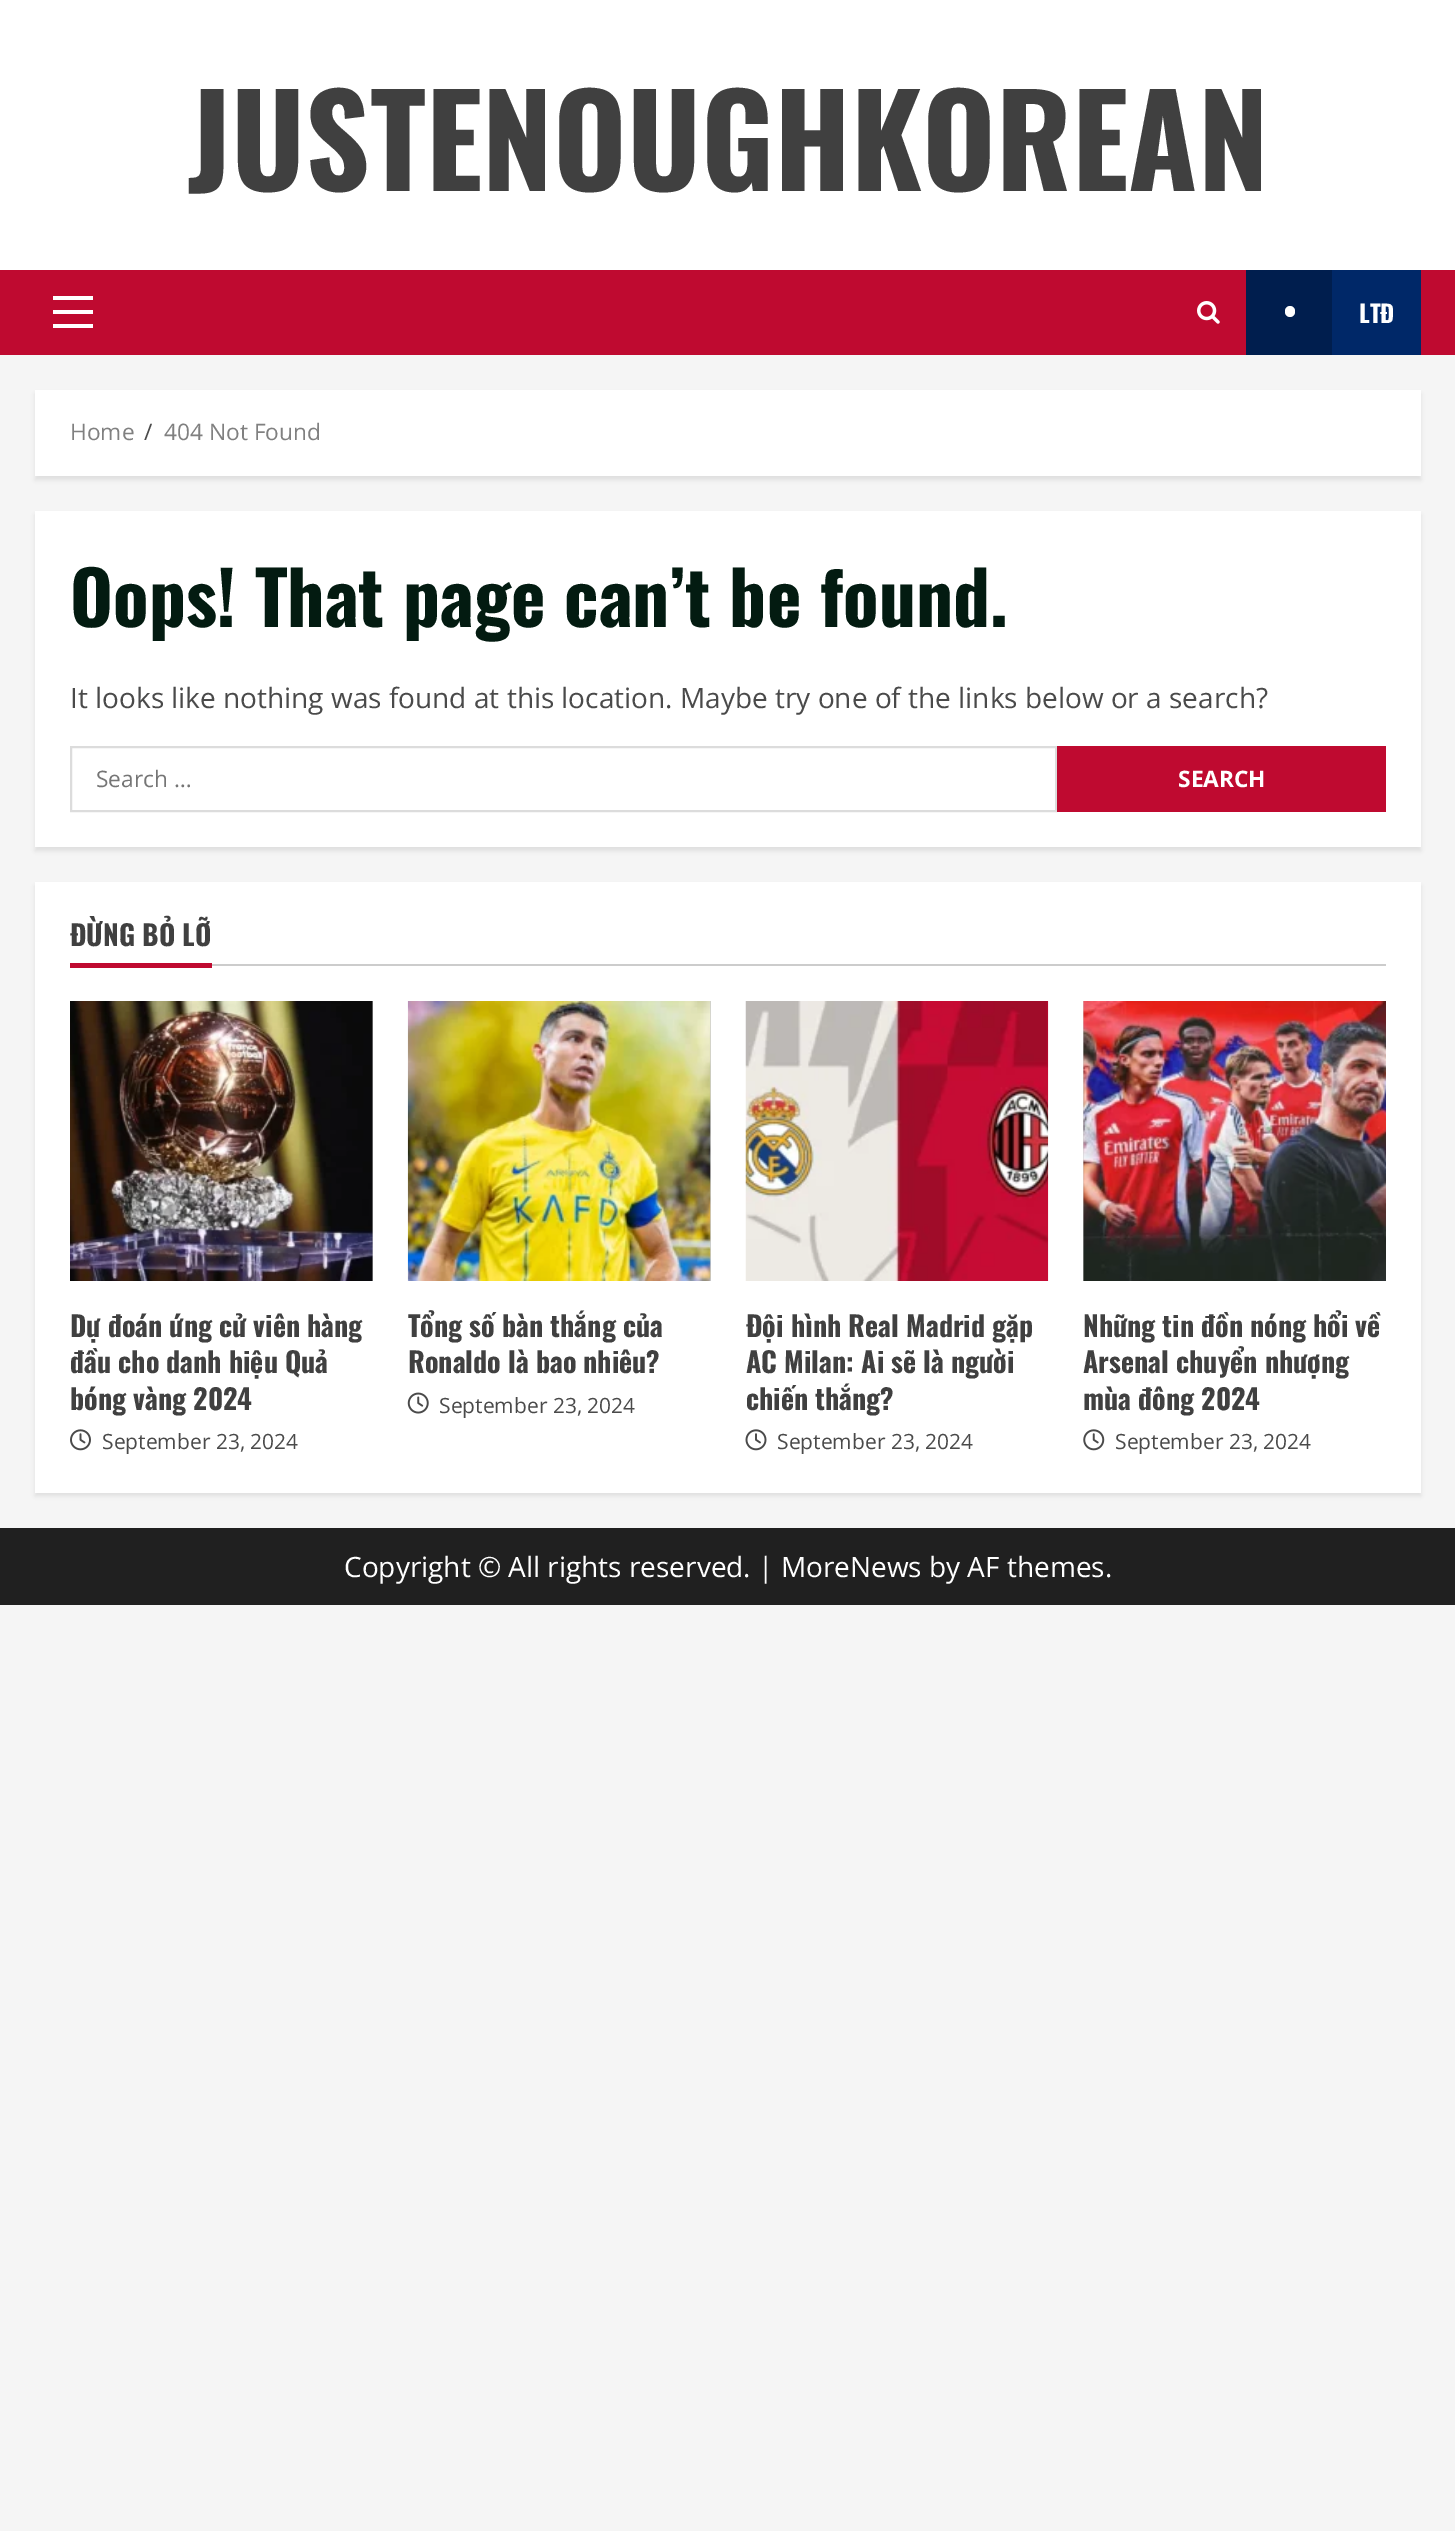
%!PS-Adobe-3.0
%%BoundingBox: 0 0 1455 2531
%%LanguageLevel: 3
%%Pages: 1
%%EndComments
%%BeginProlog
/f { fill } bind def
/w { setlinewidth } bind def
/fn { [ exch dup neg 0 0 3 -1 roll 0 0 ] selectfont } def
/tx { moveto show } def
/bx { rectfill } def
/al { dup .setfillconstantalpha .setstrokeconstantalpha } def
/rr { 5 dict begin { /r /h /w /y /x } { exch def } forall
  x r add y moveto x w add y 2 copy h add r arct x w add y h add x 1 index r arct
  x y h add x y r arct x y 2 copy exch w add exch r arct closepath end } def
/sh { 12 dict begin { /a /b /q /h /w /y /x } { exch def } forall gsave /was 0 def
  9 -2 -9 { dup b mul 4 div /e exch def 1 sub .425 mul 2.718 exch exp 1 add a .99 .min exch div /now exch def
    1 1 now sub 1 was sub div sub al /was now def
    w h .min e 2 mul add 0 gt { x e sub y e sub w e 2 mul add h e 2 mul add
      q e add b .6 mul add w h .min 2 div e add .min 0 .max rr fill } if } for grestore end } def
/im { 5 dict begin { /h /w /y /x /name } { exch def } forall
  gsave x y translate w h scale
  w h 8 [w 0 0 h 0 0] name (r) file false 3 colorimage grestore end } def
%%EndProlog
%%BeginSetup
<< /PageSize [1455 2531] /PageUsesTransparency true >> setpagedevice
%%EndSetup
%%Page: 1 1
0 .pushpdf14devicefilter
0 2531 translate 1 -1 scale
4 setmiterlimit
0.961 setgray
0 0 1455 2531 bx
1 setgray
0 0 1455 270 bx
/Oswald-Bold 126 fn
0.251 setgray
(JUSTENOUGHKOREAN) 187 191 tx
0.749 0.039 0.188 setrgbcolor
0 270 1455 85 bx
1 setgray
53 310 40 4 bx
53 296 40 4 bx
53 324 40 4 bx
(image0.raw) 1197 301 23 23 im
0 0.157 0.408 setrgbcolor
1332 270 89 85 bx
0 0.118 0.306 setrgbcolor
1246 270 86 85 bx
1 setgray
1285 306 10 11 5 rr f
/Oswald-Bold 24 fn
(LTĐ) 1359 323 tx
0 setgray
35 394 1386 86 0 2 0.08 sh
1 setgray
35 390 1386 86 bx
/OpenSans-Regular 22.75 fn
0.502 setgray
(Home) 70 440 tx
0.29 setgray
(/) 144 440 tx
0.502 setgray
(404 Not Found) 164 440 tx
0 setgray
35 515 1386 336 0 2 0.08 sh
1 setgray
35 511 1386 336 bx
/Oswald-Bold 73.5 fn
0.012 0.106 0.067 setrgbcolor
(Oops! That page can’t be found.) 70 627 tx
/OpenSans-Regular 28 fn
0.29 setgray
(It looks like nothing was found at this location. Maybe try one of the links below or a search?) 70 708 tx
0.863 setgray
2 w
71 747 985 64 rectstroke
/OpenSans-Regular 22.75 fn
0.459 setgray
(Search …) 96 787 tx
0.749 0.039 0.188 setrgbcolor
1057 746 329 66 bx
/OpenSans-Bold 22.75 fn
1 setgray
(SEARCH) 1178 787 tx
0 setgray
35 886 1386 610 0 2 0.08 sh
1 setgray
35 882 1386 611 bx
0.8 setgray
212 964 1174 2 bx
/Oswald-Bold 28 fn
0.251 setgray
(ĐỪNG BỎ LỠ) 70 946 tx
0.749 0.039 0.188 setrgbcolor
70 963 142 5 bx
0.8 setgray
372 1001 1 280 bx
(image1.raw) 70 1001 303 280 im
0.251 setgray
(Dự đoán ứng cử viên hàng) 70 1337 tx
(đầu cho danh hiệu Quả) 70 1373 tx
(bóng vàng 2024) 70 1410 tx
(image2.raw) 70 1429 21 22 im
/OpenSans-Regular 21 fn
0.29 setgray
(September 23, 2024) 102 1449 tx
0.8 setgray
710 1001 1 280 bx
(image3.raw) 407 1001 304 280 im
/Oswald-Bold 28 fn
0.251 setgray
(Tổng số bàn thắng của) 408 1337 tx
(Ronaldo là bao nhiêu?) 408 1373 tx
(image4.raw) 407 1392 22 22 im
/OpenSans-Regular 21 fn
0.29 setgray
(September 23, 2024) 439 1413 tx
(image5.raw) 745 1001 304 280 im
/Oswald-Bold 28 fn
0.251 setgray
(Đội hình Real Madrid gặp) 746 1337 tx
(AC Milan: Ai sẽ là người) 746 1373 tx
(chiến thắng?) 746 1410 tx
(image6.raw) 745 1429 22 22 im
/OpenSans-Regular 21 fn
0.29 setgray
(September 23, 2024) 777 1449 tx
0.8 setgray
1083 1001 1 280 bx
(image7.raw) 1083 1001 303 280 im
/Oswald-Bold 28 fn
0.251 setgray
(Những tin đồn nóng hổi về) 1083 1337 tx
(Arsenal chuyển nhượng) 1083 1373 tx
(mùa đông 2024) 1083 1410 tx
(image8.raw) 1083 1429 22 22 im
/OpenSans-Regular 21 fn
0.29 setgray
(September 23, 2024) 1115 1449 tx
0.125 setgray
0 1528 1455 77 bx
/OpenSans-Regular 28 fn
1 setgray
(Copyright © All rights reserved. | MoreNews by AF themes.) 344 1577 tx
.poppdf14devicefilter showpage
%%EOF
